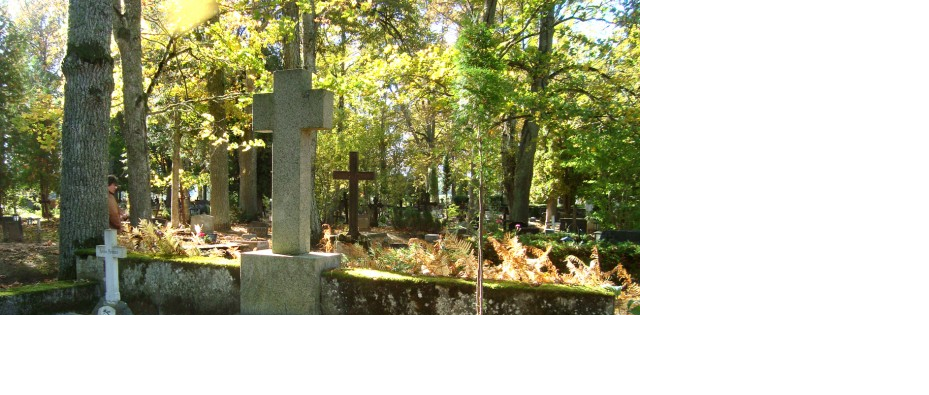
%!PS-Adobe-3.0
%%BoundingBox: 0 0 929 395
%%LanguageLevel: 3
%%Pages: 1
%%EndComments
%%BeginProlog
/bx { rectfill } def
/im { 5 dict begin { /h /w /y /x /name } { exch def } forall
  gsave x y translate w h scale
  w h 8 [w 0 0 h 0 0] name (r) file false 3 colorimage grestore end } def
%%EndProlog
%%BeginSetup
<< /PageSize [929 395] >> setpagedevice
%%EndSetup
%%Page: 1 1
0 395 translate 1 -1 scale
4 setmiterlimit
1 setgray
0 0 929 395 bx
(image0.raw) 0 0 640 315 im
showpage
%%EOF
